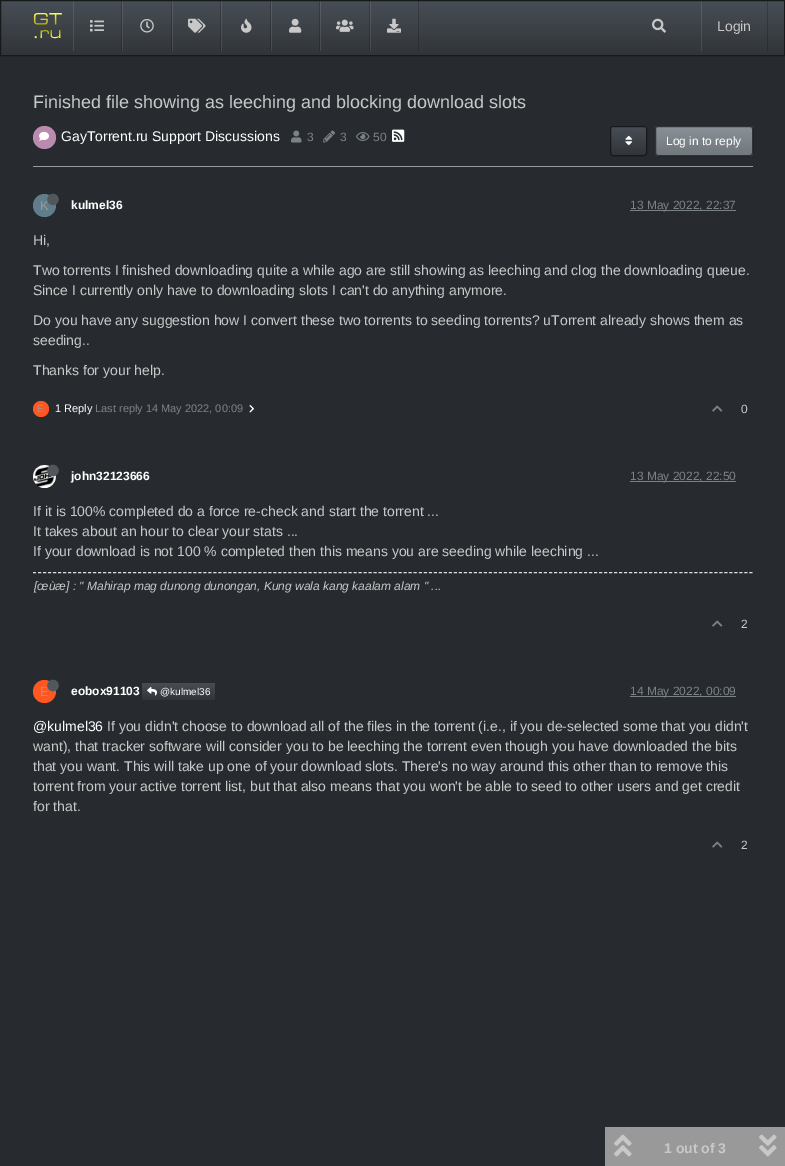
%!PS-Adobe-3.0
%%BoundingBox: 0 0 785 1166
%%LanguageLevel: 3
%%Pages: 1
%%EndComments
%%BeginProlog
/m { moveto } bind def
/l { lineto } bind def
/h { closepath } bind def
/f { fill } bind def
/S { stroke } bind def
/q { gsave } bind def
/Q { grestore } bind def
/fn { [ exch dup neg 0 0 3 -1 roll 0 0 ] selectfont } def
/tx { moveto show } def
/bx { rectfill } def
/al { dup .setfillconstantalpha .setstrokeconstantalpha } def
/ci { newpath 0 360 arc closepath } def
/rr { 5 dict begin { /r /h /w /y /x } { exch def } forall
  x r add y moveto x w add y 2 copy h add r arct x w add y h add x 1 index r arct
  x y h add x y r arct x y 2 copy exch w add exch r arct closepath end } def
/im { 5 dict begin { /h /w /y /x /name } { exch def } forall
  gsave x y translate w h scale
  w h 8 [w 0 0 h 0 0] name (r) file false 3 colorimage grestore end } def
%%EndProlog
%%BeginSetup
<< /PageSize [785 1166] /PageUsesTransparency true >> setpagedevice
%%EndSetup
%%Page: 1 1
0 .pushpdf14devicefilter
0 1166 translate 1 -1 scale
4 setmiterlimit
0.153 0.169 0.188 setrgbcolor
0 0 785 1166 bx
q 1 1 m 784 1 l 784 55 l 1 55 l h clip newpath
<< /ShadingType 2 /ColorSpace /DeviceRGB /Coords [393 1 393 55] /Extend [true true] /Function << /FunctionType 3 /Domain [0 1] /Functions [<< /FunctionType 2 /Domain [0 1] /C0 [0.282 0.306 0.333] /C1 [0.227 0.247 0.267] /N 1 >> << /FunctionType 2 /Domain [0 1] /C0 [0.227 0.247 0.267] /C1 [0.192 0.208 0.224] /N 1 >>] /Bounds [0.6] /Encode [0 1 0 1] >> >> shfill Q
q 370 1 m 371 1 l 371 51 l 370 51 l h clip newpath
<< /ShadingType 2 /ColorSpace /DeviceRGB /Coords [393 1 393 55] /Extend [true true] /Function << /FunctionType 3 /Domain [0 1] /Functions [<< /FunctionType 2 /Domain [0 1] /C0 [0.353 0.376 0.4] /C1 [0.306 0.322 0.341] /N 1 >> << /FunctionType 2 /Domain [0 1] /C0 [0.306 0.322 0.341] /C1 [0.275 0.286 0.302] /N 1 >>] /Bounds [0.6] /Encode [0 1 0 1] >> >> shfill Q
q 418 1 m 419 1 l 419 51 l 418 51 l h clip newpath
<< /ShadingType 2 /ColorSpace /DeviceRGB /Coords [393 1 393 55] /Extend [true true] /Function << /FunctionType 3 /Domain [0 1] /Functions [<< /FunctionType 2 /Domain [0 1] /C0 [0.227 0.243 0.267] /C1 [0.18 0.196 0.212] /N 1 >> << /FunctionType 2 /Domain [0 1] /C0 [0.18 0.196 0.212] /C1 [0.153 0.165 0.18] /N 1 >>] /Bounds [0.6] /Encode [0 1 0 1] >> >> shfill Q
q 320 1 m 321 1 l 321 51 l 320 51 l h clip newpath
<< /ShadingType 2 /ColorSpace /DeviceRGB /Coords [393 1 393 55] /Extend [true true] /Function << /FunctionType 3 /Domain [0 1] /Functions [<< /FunctionType 2 /Domain [0 1] /C0 [0.353 0.376 0.4] /C1 [0.306 0.322 0.341] /N 1 >> << /FunctionType 2 /Domain [0 1] /C0 [0.306 0.322 0.341] /C1 [0.275 0.286 0.302] /N 1 >>] /Bounds [0.6] /Encode [0 1 0 1] >> >> shfill Q
q 369 1 m 370 1 l 370 51 l 369 51 l h clip newpath
<< /ShadingType 2 /ColorSpace /DeviceRGB /Coords [393 1 393 55] /Extend [true true] /Function << /FunctionType 3 /Domain [0 1] /Functions [<< /FunctionType 2 /Domain [0 1] /C0 [0.227 0.243 0.267] /C1 [0.18 0.196 0.212] /N 1 >> << /FunctionType 2 /Domain [0 1] /C0 [0.18 0.196 0.212] /C1 [0.153 0.165 0.18] /N 1 >>] /Bounds [0.6] /Encode [0 1 0 1] >> >> shfill Q
q 271 1 m 272 1 l 272 51 l 271 51 l h clip newpath
<< /ShadingType 2 /ColorSpace /DeviceRGB /Coords [393 1 393 55] /Extend [true true] /Function << /FunctionType 3 /Domain [0 1] /Functions [<< /FunctionType 2 /Domain [0 1] /C0 [0.353 0.376 0.4] /C1 [0.306 0.322 0.341] /N 1 >> << /FunctionType 2 /Domain [0 1] /C0 [0.306 0.322 0.341] /C1 [0.275 0.286 0.302] /N 1 >>] /Bounds [0.6] /Encode [0 1 0 1] >> >> shfill Q
q 319 1 m 320 1 l 320 51 l 319 51 l h clip newpath
<< /ShadingType 2 /ColorSpace /DeviceRGB /Coords [393 1 393 55] /Extend [true true] /Function << /FunctionType 3 /Domain [0 1] /Functions [<< /FunctionType 2 /Domain [0 1] /C0 [0.227 0.243 0.267] /C1 [0.18 0.196 0.212] /N 1 >> << /FunctionType 2 /Domain [0 1] /C0 [0.18 0.196 0.212] /C1 [0.153 0.165 0.18] /N 1 >>] /Bounds [0.6] /Encode [0 1 0 1] >> >> shfill Q
q 221 1 m 222 1 l 222 51 l 221 51 l h clip newpath
<< /ShadingType 2 /ColorSpace /DeviceRGB /Coords [393 1 393 55] /Extend [true true] /Function << /FunctionType 3 /Domain [0 1] /Functions [<< /FunctionType 2 /Domain [0 1] /C0 [0.353 0.376 0.4] /C1 [0.306 0.322 0.341] /N 1 >> << /FunctionType 2 /Domain [0 1] /C0 [0.306 0.322 0.341] /C1 [0.275 0.286 0.302] /N 1 >>] /Bounds [0.6] /Encode [0 1 0 1] >> >> shfill Q
q 270 1 m 271 1 l 271 51 l 270 51 l h clip newpath
<< /ShadingType 2 /ColorSpace /DeviceRGB /Coords [393 1 393 55] /Extend [true true] /Function << /FunctionType 3 /Domain [0 1] /Functions [<< /FunctionType 2 /Domain [0 1] /C0 [0.227 0.243 0.267] /C1 [0.18 0.196 0.212] /N 1 >> << /FunctionType 2 /Domain [0 1] /C0 [0.18 0.196 0.212] /C1 [0.153 0.165 0.18] /N 1 >>] /Bounds [0.6] /Encode [0 1 0 1] >> >> shfill Q
q 172 1 m 173 1 l 173 51 l 172 51 l h clip newpath
<< /ShadingType 2 /ColorSpace /DeviceRGB /Coords [393 1 393 55] /Extend [true true] /Function << /FunctionType 3 /Domain [0 1] /Functions [<< /FunctionType 2 /Domain [0 1] /C0 [0.353 0.376 0.4] /C1 [0.306 0.322 0.341] /N 1 >> << /FunctionType 2 /Domain [0 1] /C0 [0.306 0.322 0.341] /C1 [0.275 0.286 0.302] /N 1 >>] /Bounds [0.6] /Encode [0 1 0 1] >> >> shfill Q
q 220 1 m 221 1 l 221 51 l 220 51 l h clip newpath
<< /ShadingType 2 /ColorSpace /DeviceRGB /Coords [393 1 393 55] /Extend [true true] /Function << /FunctionType 3 /Domain [0 1] /Functions [<< /FunctionType 2 /Domain [0 1] /C0 [0.227 0.243 0.267] /C1 [0.18 0.196 0.212] /N 1 >> << /FunctionType 2 /Domain [0 1] /C0 [0.18 0.196 0.212] /C1 [0.153 0.165 0.18] /N 1 >>] /Bounds [0.6] /Encode [0 1 0 1] >> >> shfill Q
q 122 1 m 123 1 l 123 51 l 122 51 l h clip newpath
<< /ShadingType 2 /ColorSpace /DeviceRGB /Coords [393 1 393 55] /Extend [true true] /Function << /FunctionType 3 /Domain [0 1] /Functions [<< /FunctionType 2 /Domain [0 1] /C0 [0.353 0.376 0.4] /C1 [0.306 0.322 0.341] /N 1 >> << /FunctionType 2 /Domain [0 1] /C0 [0.306 0.322 0.341] /C1 [0.275 0.286 0.302] /N 1 >>] /Bounds [0.6] /Encode [0 1 0 1] >> >> shfill Q
q 171 1 m 172 1 l 172 51 l 171 51 l h clip newpath
<< /ShadingType 2 /ColorSpace /DeviceRGB /Coords [393 1 393 55] /Extend [true true] /Function << /FunctionType 3 /Domain [0 1] /Functions [<< /FunctionType 2 /Domain [0 1] /C0 [0.227 0.243 0.267] /C1 [0.18 0.196 0.212] /N 1 >> << /FunctionType 2 /Domain [0 1] /C0 [0.18 0.196 0.212] /C1 [0.153 0.165 0.18] /N 1 >>] /Bounds [0.6] /Encode [0 1 0 1] >> >> shfill Q
q 73 1 m 74 1 l 74 51 l 73 51 l h clip newpath
<< /ShadingType 2 /ColorSpace /DeviceRGB /Coords [393 1 393 55] /Extend [true true] /Function << /FunctionType 3 /Domain [0 1] /Functions [<< /FunctionType 2 /Domain [0 1] /C0 [0.353 0.376 0.4] /C1 [0.306 0.322 0.341] /N 1 >> << /FunctionType 2 /Domain [0 1] /C0 [0.306 0.322 0.341] /C1 [0.275 0.286 0.302] /N 1 >>] /Bounds [0.6] /Encode [0 1 0 1] >> >> shfill Q
q 121 1 m 122 1 l 122 51 l 121 51 l h clip newpath
<< /ShadingType 2 /ColorSpace /DeviceRGB /Coords [393 1 393 55] /Extend [true true] /Function << /FunctionType 3 /Domain [0 1] /Functions [<< /FunctionType 2 /Domain [0 1] /C0 [0.227 0.243 0.267] /C1 [0.18 0.196 0.212] /N 1 >> << /FunctionType 2 /Domain [0 1] /C0 [0.18 0.196 0.212] /C1 [0.153 0.165 0.18] /N 1 >>] /Bounds [0.6] /Encode [0 1 0 1] >> >> shfill Q
q 701 1 m 702 1 l 702 51 l 701 51 l h clip newpath
<< /ShadingType 2 /ColorSpace /DeviceRGB /Coords [393 1 393 55] /Extend [true true] /Function << /FunctionType 3 /Domain [0 1] /Functions [<< /FunctionType 2 /Domain [0 1] /C0 [0.353 0.376 0.4] /C1 [0.306 0.322 0.341] /N 1 >> << /FunctionType 2 /Domain [0 1] /C0 [0.306 0.322 0.341] /C1 [0.275 0.286 0.302] /N 1 >>] /Bounds [0.6] /Encode [0 1 0 1] >> >> shfill Q
q 767 1 m 768 1 l 768 51 l 767 51 l h clip newpath
<< /ShadingType 2 /ColorSpace /DeviceRGB /Coords [393 1 393 55] /Extend [true true] /Function << /FunctionType 3 /Domain [0 1] /Functions [<< /FunctionType 2 /Domain [0 1] /C0 [0.227 0.243 0.267] /C1 [0.18 0.196 0.212] /N 1 >> << /FunctionType 2 /Domain [0 1] /C0 [0.18 0.196 0.212] /C1 [0.153 0.165 0.18] /N 1 >>] /Bounds [0.6] /Encode [0 1 0 1] >> >> shfill Q
0.09 0.098 0.106 setrgbcolor
0.5 0.5 784 55 rectstroke
(image0.raw) 33 13 29 26 im
(image1.raw) 90 20 14 12 im
(image2.raw) 140 19 14 14 im
(image3.raw) 188 18 18 15 im
(image4.raw) 241 18 11 15 im
(image5.raw) 289 18 13 15 im
(image6.raw) 336 19 18 13 im
(image7.raw) 387 18 14 15 im
(image8.raw) 652 18 14 15 im
/LiberationSans-Regular 14 fn
0.784 setgray
(Login) 717 31 tx
/LiberationSans-Regular 18 fn
(Finished file showing as leeching and blocking download slots) 33 108 tx
0.6 setgray
33 166 720 1 bx
0.729 0.545 0.686 setrgbcolor
44.5 137.5 11.5 ci f
(image9.raw) 39 131 10 10 im
/LiberationSans-Regular 14 fn
1 setgray
(GayTorrent.ru Support Discussions) 61 141 tx
(image10.raw) 291 130 11 13 im
/LiberationSans-Regular 12 fn
0.478 0.51 0.533 setrgbcolor
(3) 307 141 tx
(image11.raw) 323 130 12 13 im
(3) 340 141 tx
(image12.raw) 356 132 14 9 im
(50) 373 141 tx
(image13.raw) 392 129 13 13 im
0.227 0.247 0.267 setrgbcolor
610 126 37 30 3 rr f
q 611 127 m 646 127 l 646 155 l 611 155 l h clip newpath
<< /ShadingType 2 /ColorSpace /DeviceRGB /Coords [629 127 629 155] /Extend [true true] /Function << /FunctionType 3 /Domain [0 1] /Functions [<< /FunctionType 2 /Domain [0 1] /C0 [0.282 0.306 0.333] /C1 [0.227 0.247 0.267] /N 1 >> << /FunctionType 2 /Domain [0 1] /C0 [0.227 0.247 0.267] /C1 [0.192 0.208 0.224] /N 1 >>] /Bounds [0.6] /Encode [0 1 0 1] >> >> shfill Q
0.6 al
0 setgray
610.5 126.5 36 29 2.5 rr S
1 al
(image14.raw) 625 135 8 11 im
0.478 0.51 0.533 setrgbcolor
655 126 98 30 3 rr f
q 656 127 m 752 127 l 752 155 l 656 155 l h clip newpath
<< /ShadingType 2 /ColorSpace /DeviceRGB /Coords [704 127 704 155] /Extend [true true] /Function << /FunctionType 3 /Domain [0 1] /Functions [<< /FunctionType 2 /Domain [0 1] /C0 [0.541 0.569 0.588] /C1 [0.478 0.51 0.533] /N 1 >> << /FunctionType 2 /Domain [0 1] /C0 [0.478 0.51 0.533] /C1 [0.439 0.471 0.49] /N 1 >>] /Bounds [0.6] /Encode [0 1 0 1] >> >> shfill Q
0.6 al
0 setgray
655.5 126.5 97 29 2.5 rr S
1 al
1 setgray
(Log in to reply) 666 145 tx
0.376 0.49 0.545 setrgbcolor
44.5 205.5 11.5 ci f
/LiberationSans-Regular 13 fn
0.6 setgray
(K) 40 210 tx
(image15.raw) 47 193 12 13 im
/LiberationSans-Bold 12 fn
1 setgray
(kulmel36) 71 209 tx
0.478 0.51 0.533 setrgbcolor
630 210 106 1 bx
/LiberationSans-Regular 12 fn
(13 May 2022, 22:37) 630 209 tx
/LiberationSans-Regular 14 fn
0.784 setgray
(Hi,) 33 245 tx
(Two torrents I finished downloading quite a while ago are still showing as leeching and clog the downloading queue.) 33 275 tx
(Since I currently only have to downloading slots I can't do anything anymore.) 33 295 tx
(Do you have any suggestion how I convert these two torrents to seeding torrents? uTorrent already shows them as) 33 325 tx
(seeding..) 33 345 tx
(Thanks for your help.) 33 375 tx
1 0.341 0.133 setrgbcolor
41 409 8 ci f
/LiberationSans-Regular 10 fn
0.6 setgray
(E) 37 412 tx
/LiberationSans-Regular 11 fn
1 setgray
(1 Reply) 55 412 tx
0.478 0.51 0.533 setrgbcolor
(Last reply 14 May 2022, 00:09) 95 412 tx
(image16.raw) 249 405 5 8 im
(image17.raw) 712 405 11 7 im
/LiberationSans-Regular 12 fn
0.784 setgray
(0) 741 413 tx
(image19.raw) 33 465 23 23 im
(image18.raw) 47 464 12 13 im
/LiberationSans-Bold 12 fn
1 setgray
(john32123666) 71 480 tx
0.478 0.51 0.533 setrgbcolor
630 481 106 1 bx
/LiberationSans-Regular 12 fn
(13 May 2022, 22:50) 630 480 tx
/LiberationSans-Regular 14 fn
0.784 setgray
(If it is 100% completed do a force re-check and start the torrent ...) 33 516 tx
(It takes about an hour to clear your stats ...) 33 536 tx
(If your download is not 100 % completed then this means you are seeding while leeching ...) 33 556 tx
0.871 setgray
[3 2.01] 0 setdash
33 572.5 m 753 572.5 l S
/LiberationSans-Italic 12 fn
0.784 setgray
([œùæ] : " Mahirap mag dunong dunongan, Kung wala kang kaalam alam " ...) 34 590 tx
(image17.raw) 712 620 11 7 im
/LiberationSans-Regular 12 fn
(2) 741 628 tx
1 0.341 0.133 setrgbcolor
44.5 691.5 11.5 ci f
/LiberationSans-Regular 13 fn
0.6 setgray
(E) 40 696 tx
(image20.raw) 47 679 12 13 im
/LiberationSans-Bold 12 fn
1 setgray
(eobox91103) 71 695 tx
q 142 683 73 17 3 rr clip newpath
<< /ShadingType 2 /ColorSpace /DeviceRGB /Coords [179 683 179 700] /Extend [true true] /Function << /FunctionType 3 /Domain [0 1] /Functions [<< /FunctionType 2 /Domain [0 1] /C0 [0.282 0.306 0.333] /C1 [0.227 0.247 0.267] /N 1 >> << /FunctionType 2 /Domain [0 1] /C0 [0.227 0.247 0.267] /C1 [0.192 0.208 0.224] /N 1 >>] /Bounds [0.6] /Encode [0 1 0 1] >> >> shfill Q
(image21.raw) 147 686 10 10 im
/LiberationSans-Regular 10 fn
(@kulmel36) 160 695 tx
0.478 0.51 0.533 setrgbcolor
630 696 106 1 bx
/LiberationSans-Regular 12 fn
(14 May 2022, 00:09) 630 695 tx
/LiberationSans-Regular 14 fn
1 setgray
(@kulmel36) 33 731 tx
0.784 setgray
(If you didn't choose to download all of the files in the torrent \(i.e., if you de-selected some that you didn't) 107 731 tx
(want\), that tracker software will consider you to be leeching the torrent even though you have downloaded the bits) 33 751 tx
(that you want. This will take up one of your download slots. There's no way around this other than to remove this) 33 771 tx
(torrent from your active torrent list, but that also means that you won't be able to seed to other users and get credit) 33 791 tx
(for that.) 33 811 tx
(image17.raw) 712 841 11 7 im
/LiberationSans-Regular 12 fn
(2) 741 849 tx
0.6 setgray
605 1127 180 39 bx
(image22.raw) 614 1134 18 23 im
/LiberationSans-Bold 14 fn
0.784 setgray
(1 out of 3) 664 1153 tx
(image23.raw) 759 1134 18 23 im
.poppdf14devicefilter showpage
%%EOF
